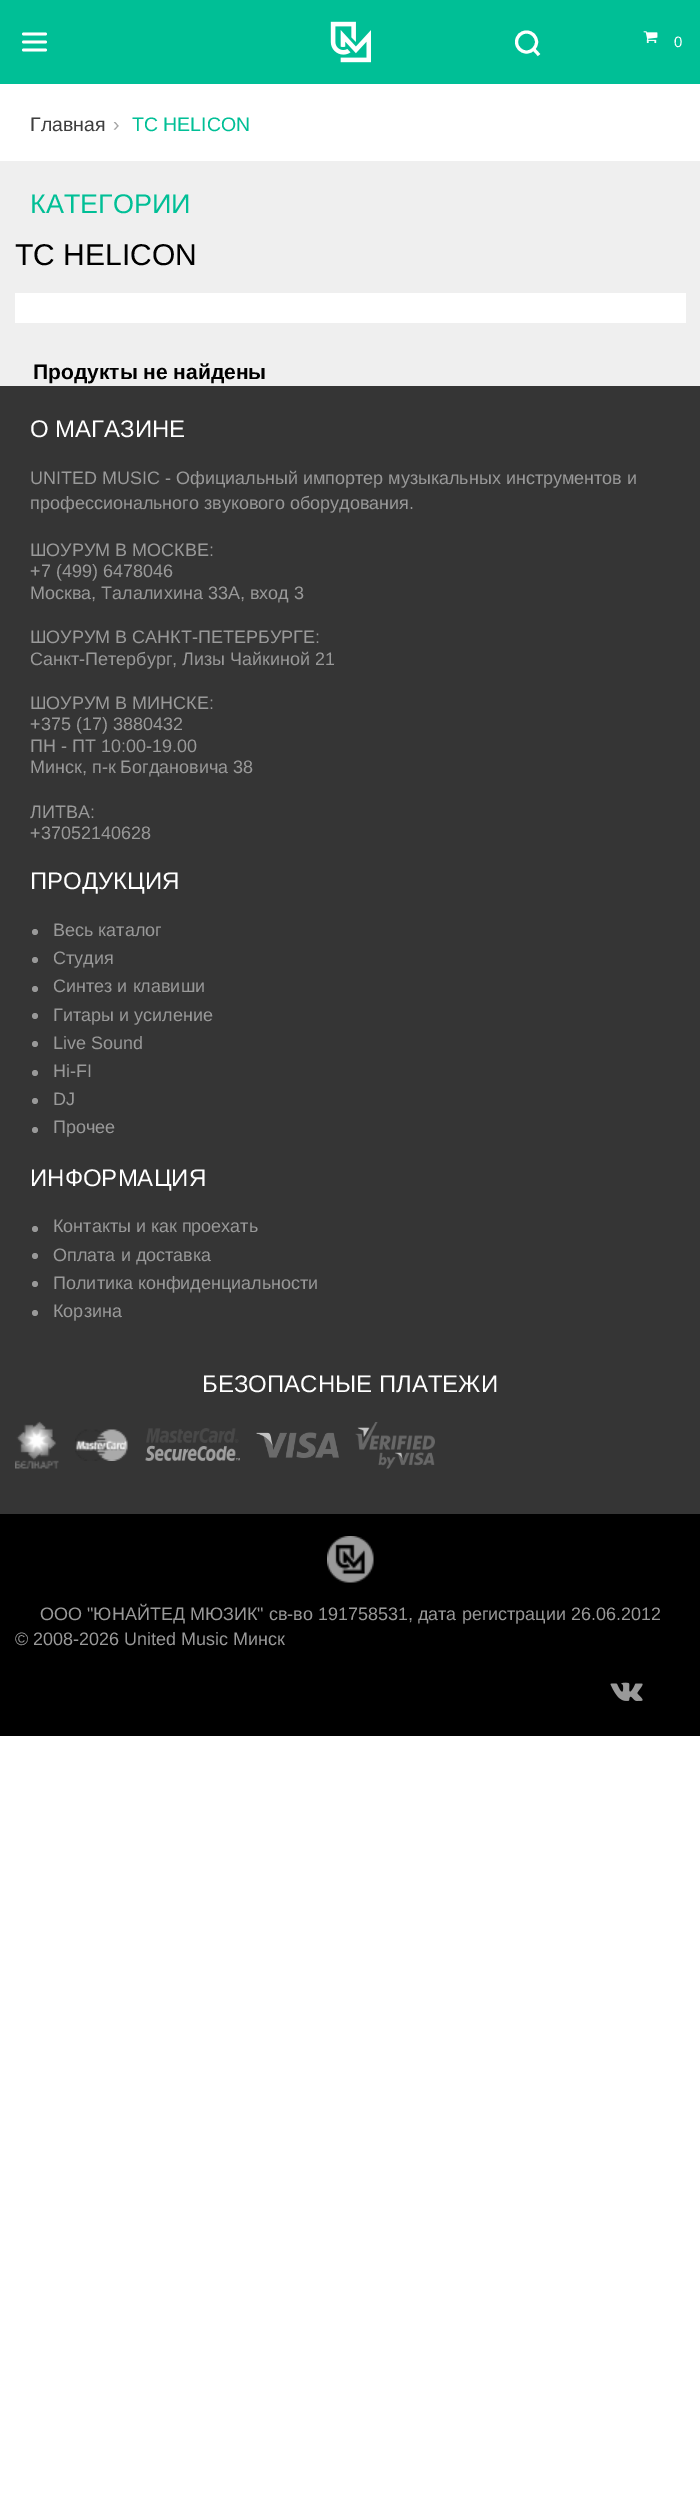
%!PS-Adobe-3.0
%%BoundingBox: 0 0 700 2520
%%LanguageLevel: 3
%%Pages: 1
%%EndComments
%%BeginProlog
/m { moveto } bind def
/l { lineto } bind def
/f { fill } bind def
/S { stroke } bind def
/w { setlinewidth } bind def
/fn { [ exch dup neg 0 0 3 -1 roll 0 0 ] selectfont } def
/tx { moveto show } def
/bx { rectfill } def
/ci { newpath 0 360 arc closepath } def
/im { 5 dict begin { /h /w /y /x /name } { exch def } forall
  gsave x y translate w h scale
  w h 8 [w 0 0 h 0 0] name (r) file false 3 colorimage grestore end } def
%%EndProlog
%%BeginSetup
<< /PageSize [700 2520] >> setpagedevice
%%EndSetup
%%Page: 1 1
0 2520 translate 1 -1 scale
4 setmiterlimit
1 setgray
0 0 700 2520 bx
0 0.749 0.588 setrgbcolor
0 0 700 84 bx
1 setgray
2.8 w
1 setlinecap
23.5 34 m 45.5 34 l 23.5 42 m 45.5 42 l 23.5 50 m 45.5 50 l S
(image0.raw) 330 21 41 42 im
3 w
0 setlinecap
526.5 42 10 ci S
533.5 49 m 539 55 l S
(image1.raw) 643 31 15 13 im
/LiberationSans-Regular 15 fn
(0) 674 47 tx
/LiberationSans-Regular 19.5 fn
0.243 setgray
(Главная) 30 131 tx
0.647 setgray
(›) 113 131 tx
0 0.749 0.588 setrgbcolor
(TC HELICON) 132 131 tx
0.937 setgray
0 161 700 225 bx
/LiberationSans-Regular 27 fn
0 0.749 0.588 setrgbcolor
(КАТЕГОРИИ) 30 213 tx
/LiberationSans-Regular 30 fn
0 setgray
(TC HELICON) 15 265 tx
1 setgray
15 293 671 30 bx
/LiberationSans-Bold 21 fn
0 setgray
(Продукты не найдены) 33 379 tx
0.208 setgray
0 386 700 1128 bx
/LiberationSans-Regular 24 fn
1 setgray
(О МАГАЗИНЕ) 30 437 tx
/LiberationSans-Regular 18 fn
0.6 setgray
(UNITED MUSIC - Официальный импортер музыкальных инструментов и) 30 484 tx
(профессионального звукового оборудования.) 30 509 tx
(ШОУРУМ В МОСКВЕ:) 30 556 tx
(+7 \(499\) 6478046) 30 577 tx
(Москва, Талалихина 33А, вход 3) 30 599 tx
(ШОУРУМ В САНКТ-ПЕТЕРБУРГЕ:) 30 643 tx
(Санкт-Петербург, Лизы Чайкиной 21) 30 665 tx
(ШОУРУМ В МИНСКЕ:) 30 709 tx
(+375 \(17\) 3880432) 30 730 tx
(ПН - ПТ 10:00-19.00) 30 752 tx
(Минск, п-к Богдановича 38) 30 773 tx
(ЛИТВА:) 30 818 tx
(+37052140628) 30 839 tx
/LiberationSans-Regular 24 fn
1 setgray
(ПРОДУКЦИЯ) 30 889 tx
0.6 setgray
35 932 3 ci f
/LiberationSans-Regular 18 fn
(Весь каталог) 53 936 tx
35 960 3 ci f
(Студия) 53 964 tx
35 989 3 ci f
(Синтез и клавиши) 53 992 tx
35 1016 3 ci f
(Гитары и усиление) 53 1021 tx
35 1044 3 ci f
(Live Sound) 53 1049 tx
35 1073 3 ci f
(Hi-FI) 53 1077 tx
35 1101 3 ci f
(DJ) 53 1105 tx
35 1130 3 ci f
(Прочее) 53 1133 tx
/LiberationSans-Regular 24 fn
1 setgray
(ИНФОРМАЦИЯ) 30 1186 tx
0.6 setgray
35 1229 3 ci f
/LiberationSans-Regular 18 fn
(Контакты и как проехать) 53 1232 tx
35 1256 3 ci f
(Оплата и доставка) 53 1261 tx
35 1284 3 ci f
(Политика конфиденциальности) 53 1289 tx
35 1313 3 ci f
(Корзина) 53 1317 tx
/LiberationSans-Regular 24 fn
1 setgray
(БЕЗОПАСНЫЕ ПЛАТЕЖИ) 202 1392 tx
(image2.raw) 15 1421 44 48 im
(image3.raw) 75 1429 53 32 im
(image4.raw) 145 1428 95 33 im
(image5.raw) 256 1432 83 26 im
(image6.raw) 355 1422 80 47 im
0 setgray
0 1514 700 222 bx
(image7.raw) 327 1536 47 47 im
/LiberationSans-Regular 18 fn
0.6 setgray
(ООО "ЮНАЙТЕД МЮЗИК" св-во 191758531, дата регистрации 26.06.2012) 40 1620 tx
(© 2008-2026 United Music Минск) 15 1645 tx
(image8.raw) 610 1682 33 19 im
showpage
%%EOF
